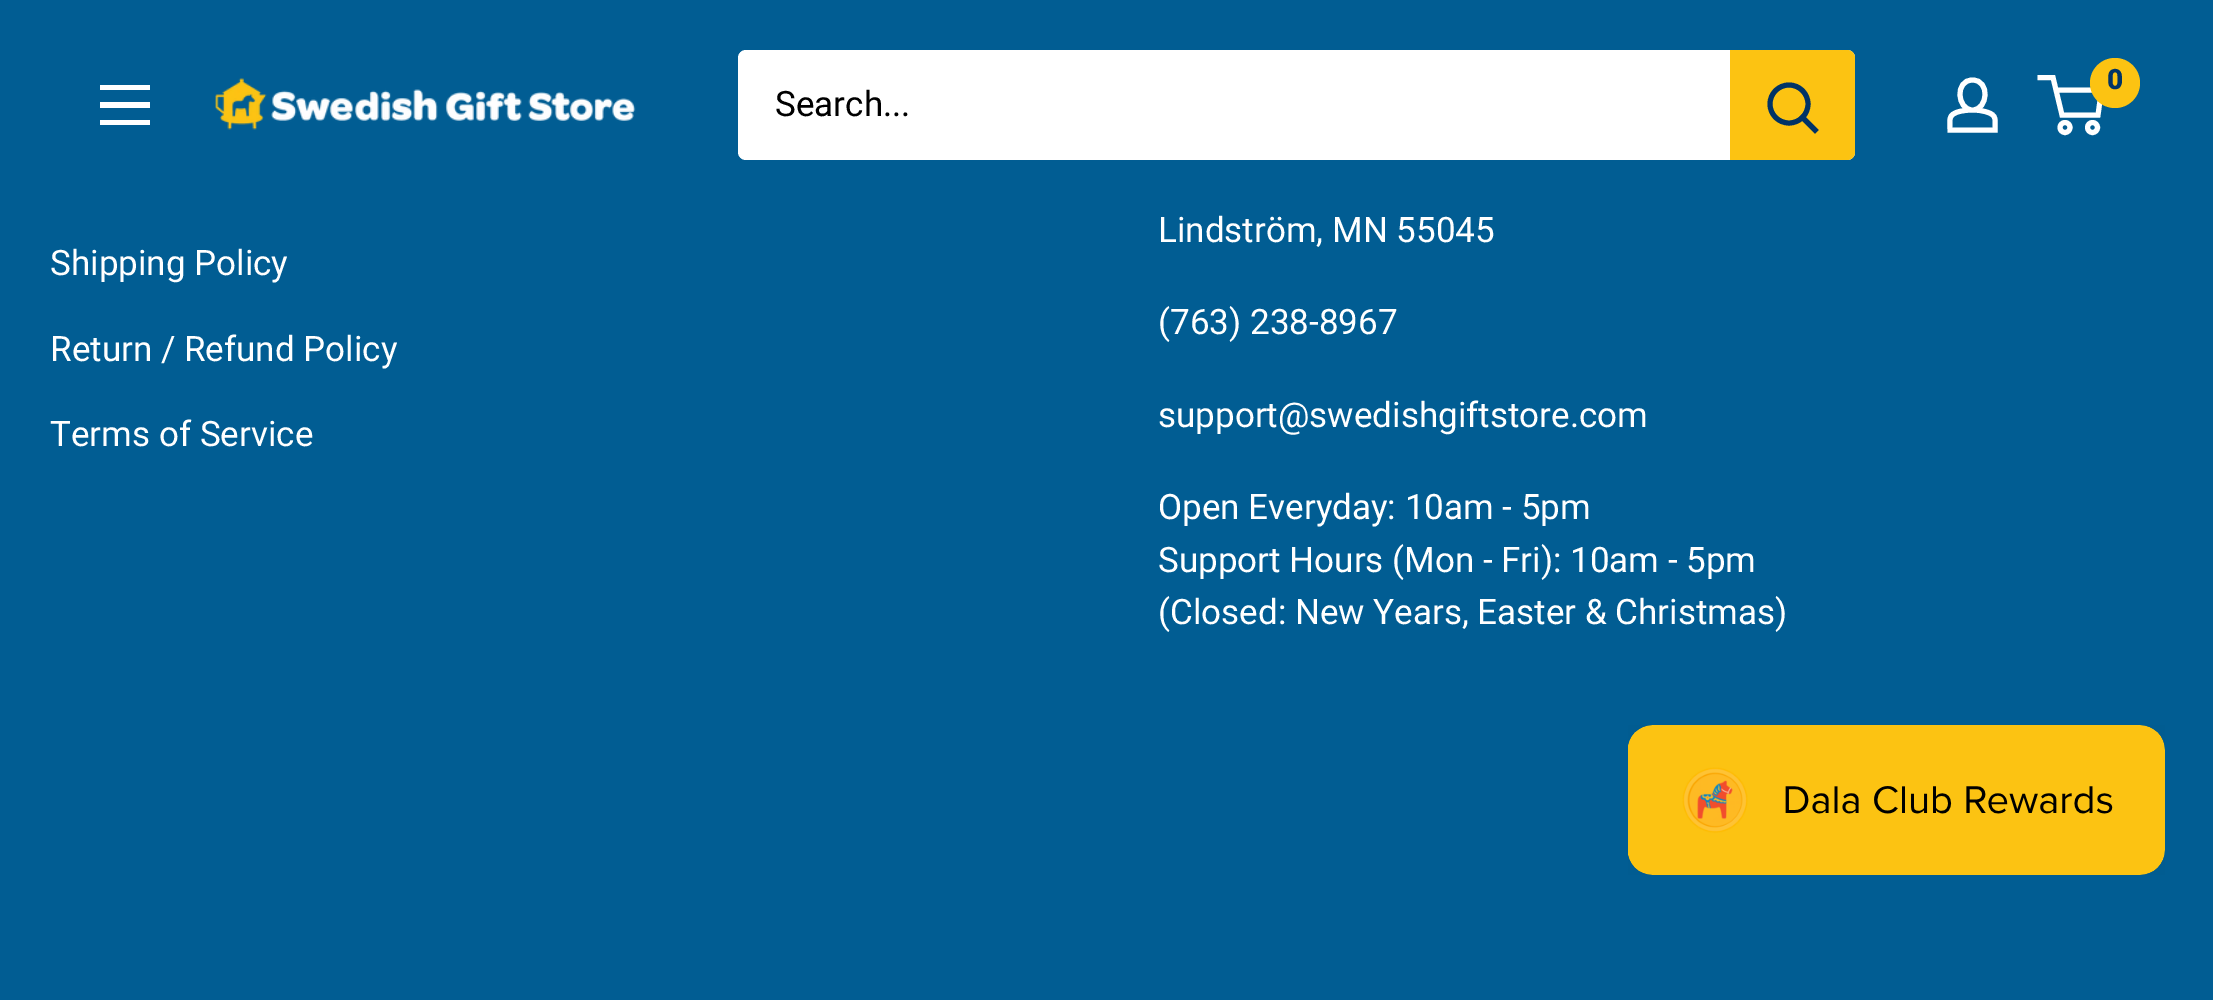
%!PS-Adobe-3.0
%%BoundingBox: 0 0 2213 1000
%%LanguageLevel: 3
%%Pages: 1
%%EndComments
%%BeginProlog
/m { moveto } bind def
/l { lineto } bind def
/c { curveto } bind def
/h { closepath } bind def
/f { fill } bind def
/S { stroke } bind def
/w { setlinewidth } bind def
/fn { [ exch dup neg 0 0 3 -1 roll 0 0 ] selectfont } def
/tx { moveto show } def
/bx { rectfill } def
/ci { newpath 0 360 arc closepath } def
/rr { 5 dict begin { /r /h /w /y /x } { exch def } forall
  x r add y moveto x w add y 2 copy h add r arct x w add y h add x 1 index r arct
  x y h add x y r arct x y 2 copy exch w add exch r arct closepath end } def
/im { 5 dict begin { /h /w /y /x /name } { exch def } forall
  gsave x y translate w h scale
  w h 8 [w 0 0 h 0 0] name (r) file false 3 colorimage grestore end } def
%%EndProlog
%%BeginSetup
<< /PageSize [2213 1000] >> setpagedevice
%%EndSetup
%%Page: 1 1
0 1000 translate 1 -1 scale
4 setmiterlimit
0.004 0.365 0.576 setrgbcolor
0 0 2213 1000 bx
1 setgray
100 120 m 150 120 l 150 125 l 100 125 l h 100 85 m 150 85 l 150 90 l 100 90 l h 100 102 m 150 102 l 150 108 l 100 108 l h eofill
(image0.raw) 215 78 421 52 im
738 50 1117 110 8 rr f
/Roboto-Regular 35 fn
0 setgray
(Search...) 775 116 tx
0.988 0.765 0.071 setrgbcolor
1730 50 m 1847 50 l 1851.5 50 1855 53.5 1855 58 c 1855 152 l 1855 156.5 1851.5 160 1847 160 c 1730 160 l h f
0 0.2 0.4 setrgbcolor
5 w
2 setlinecap
1815 130 m 1802.5 117.5 l S
0 setlinecap
1789 104 19 ci S
1 setgray
1972.5 110 m 1977 110 1982 110.5 1986.5 112 c 1997.5 115 1995 120.5 1995 130 c 1950 130 l 1950 120 1947.5 114.5 1959.5 111.5 c 1963.5 110.5 1968 110 1972.5 110 c h 1972.5 110 m 1957 110 1954.5 80 1972.5 80 c 1990.5 80 1988 110 1972.5 110 c h S
2065 127.5 5 ci S
2092.5 127.5 5 ci S
2056 90 m 2101.5 90 l 2098 115 l 2062 115 l 2053 77.5 l 2037.5 77.5 l S
0.988 0.765 0.071 setrgbcolor
2115 83 25 ci f
/Roboto-Black 28 fn
0 0.2 0.4 setrgbcolor
(0) 2107 89 tx
/Roboto-Regular 35 fn
1 setgray
(Shipping Policy) 50 275 tx
(Return / Refund Policy) 50 361 tx
(Terms of Service) 50 446 tx
(Lindström, MN 55045) 1158 242 tx
(\(763\) 238-8967) 1158 334 tx
(support@swedishgiftstore.com) 1158 427 tx
(Open Everyday: 10am - 5pm) 1158 519 tx
(Support Hours \(Mon - Fri\): 10am - 5pm) 1158 572 tx
(\(Closed: New Years, Easter & Christmas\)) 1158 624 tx
(image1.raw) 1628 725 537 150 im
showpage
%%EOF
